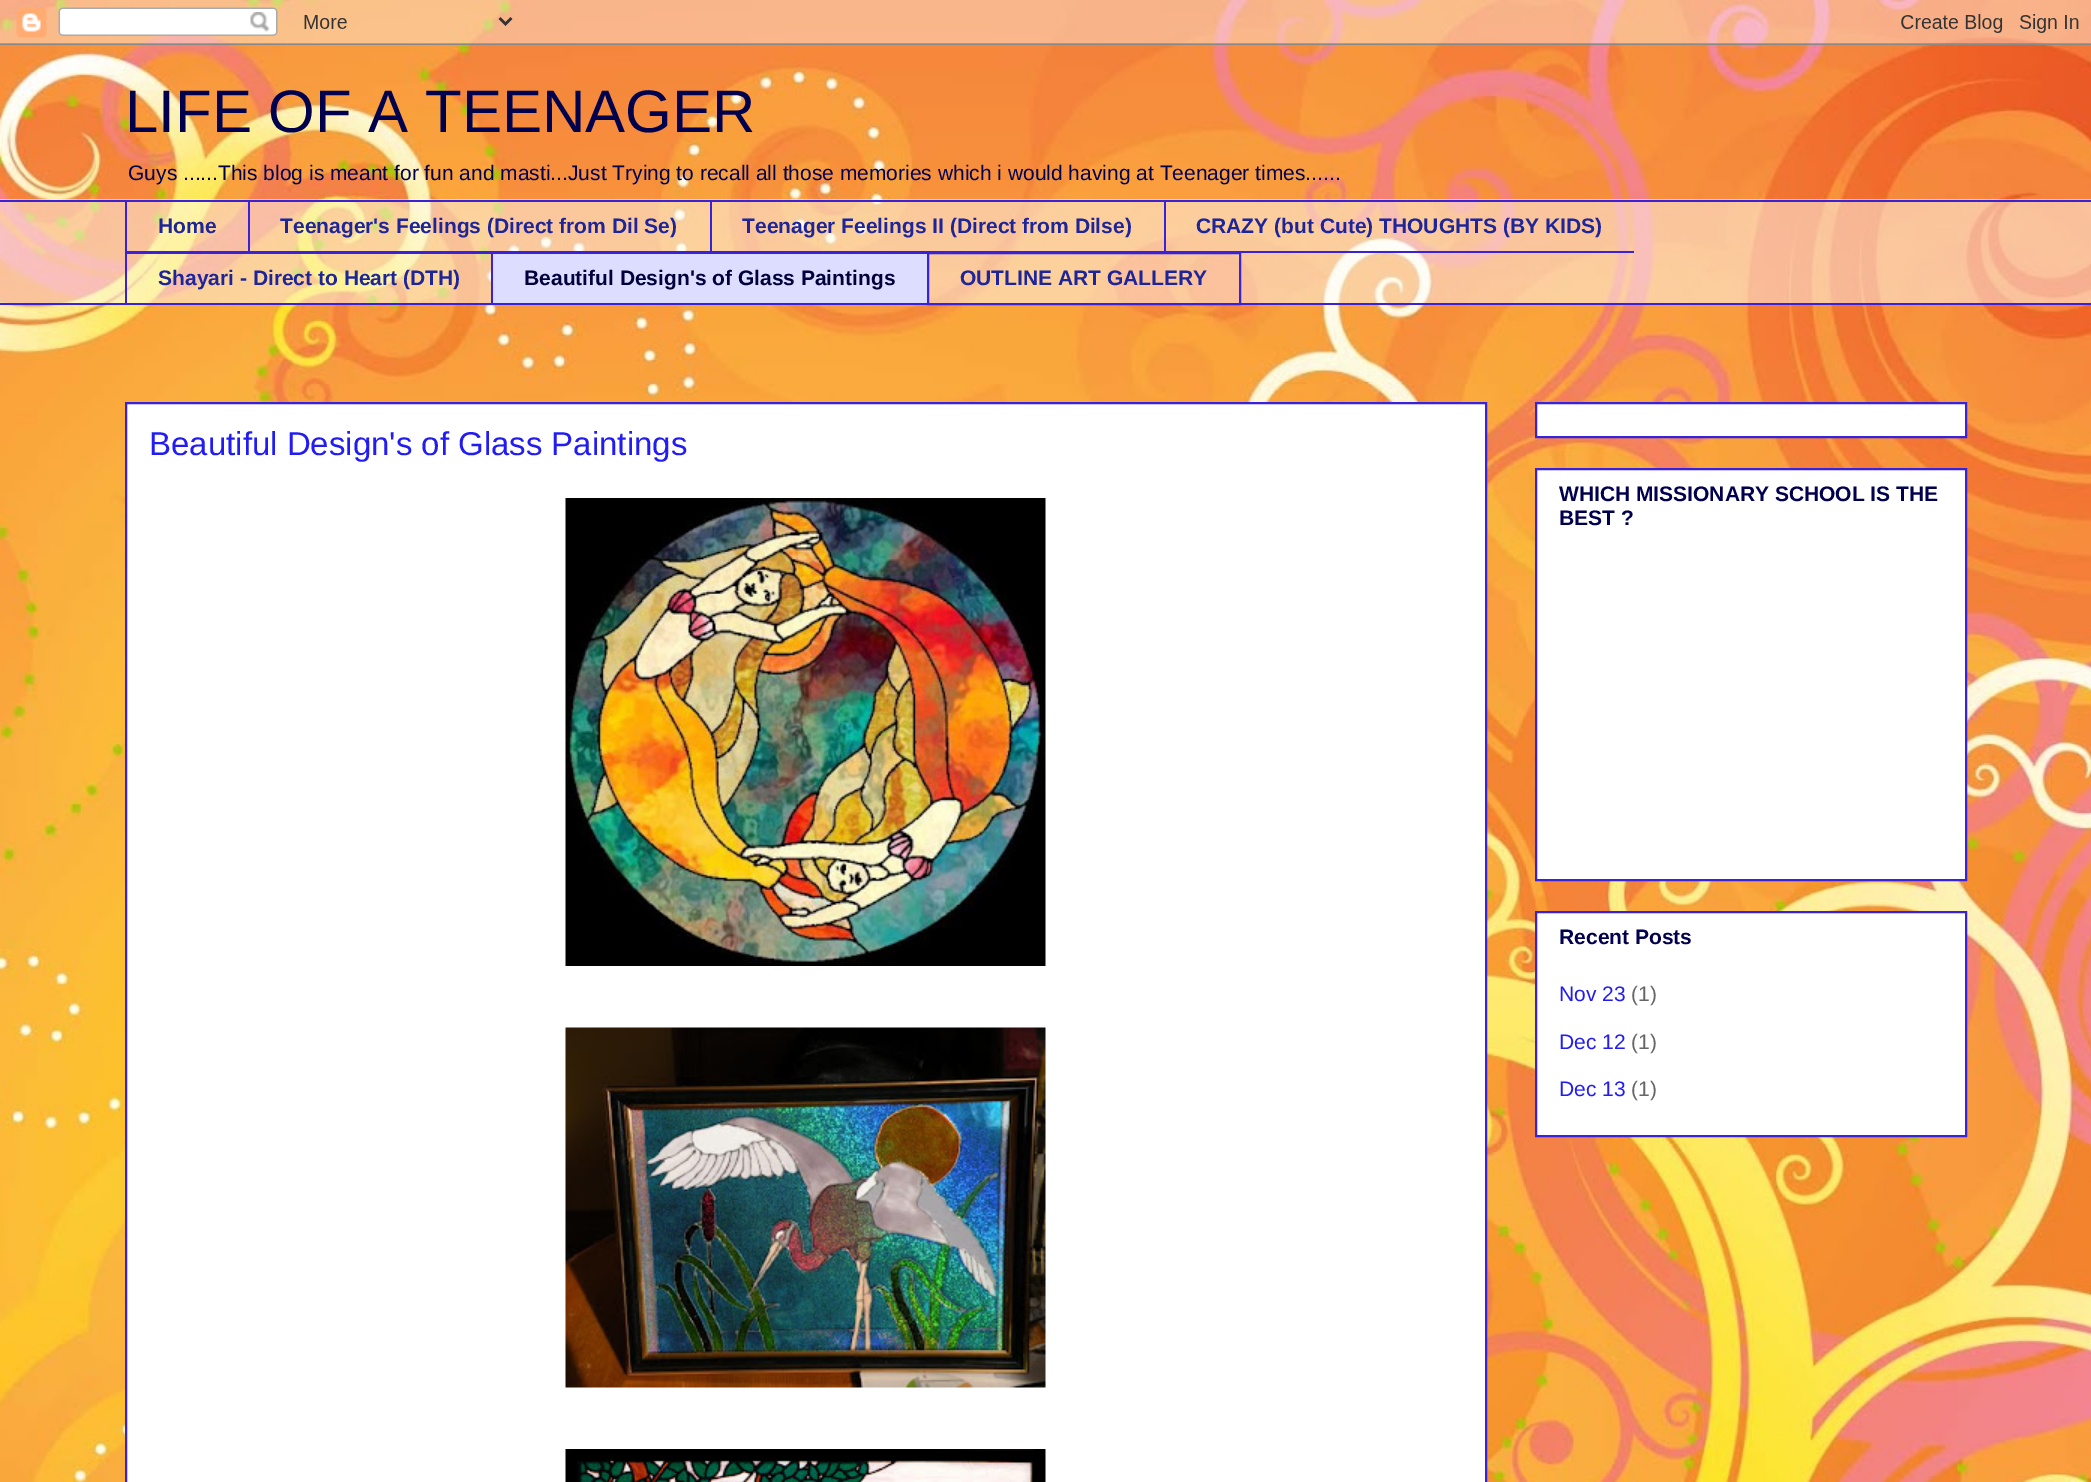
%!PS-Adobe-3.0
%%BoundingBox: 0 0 2091 1482
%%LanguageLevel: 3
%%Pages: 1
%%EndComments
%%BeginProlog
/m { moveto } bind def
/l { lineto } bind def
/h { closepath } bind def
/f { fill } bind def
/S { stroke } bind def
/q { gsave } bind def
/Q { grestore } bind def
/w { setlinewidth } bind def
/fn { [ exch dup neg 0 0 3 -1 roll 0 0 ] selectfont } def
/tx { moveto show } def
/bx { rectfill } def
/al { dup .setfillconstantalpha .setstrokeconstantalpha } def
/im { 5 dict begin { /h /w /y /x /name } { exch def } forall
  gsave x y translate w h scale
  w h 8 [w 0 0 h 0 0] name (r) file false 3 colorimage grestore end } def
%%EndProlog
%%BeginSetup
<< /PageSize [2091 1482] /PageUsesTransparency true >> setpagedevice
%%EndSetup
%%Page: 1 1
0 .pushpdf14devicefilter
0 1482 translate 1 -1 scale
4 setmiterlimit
1 setgray
0 0 2091 1482 bx
(image0.raw) 0 0 2091 1482 im
(image1.raw) 0 0 2091 45 im
/LiberationSans-Regular 60 fn
0.004 0 0.306 setrgbcolor
(LIFE OF A TEENAGER) 125 132 tx
/LiberationSans-Regular 21 fn
(Guys ......This blog is meant for fun and masti...Just Trying to recall all those memories which i would having at Teenager times......) 128 180 tx
0.49 al
1 setgray
0 199 2091 104 bx
1 al
0.22 0.133 0.863 setrgbcolor
0 200 2091 2 bx
125 251 1039 1 bx
125 200 2 52 bx
/LiberationSans-Bold 21 fn
0.114 0.145 0.6 setrgbcolor
(Home) 158 233 tx
0.22 0.133 0.863 setrgbcolor
248 200 2 52 bx
0.114 0.145 0.6 setrgbcolor
(Teenager's Feelings \(Direct from Dil Se\)) 280 233 tx
0.22 0.133 0.863 setrgbcolor
710 200 2 52 bx
0.114 0.145 0.6 setrgbcolor
(Teenager Feelings II \(Direct from Dilse\)) 742 233 tx
0.22 0.133 0.863 setrgbcolor
1164 251 470 2 bx
1164 200 2 52 bx
0.114 0.145 0.6 setrgbcolor
(CRAZY \(but Cute\) THOUGHTS \(BY KIDS\)) 1196 233 tx
0.22 0.133 0.863 setrgbcolor
125 252 802 2 bx
125 252 2 53 bx
0.114 0.145 0.6 setrgbcolor
(Shayari - Direct to Heart \(DTH\)) 158 285 tx
0.867 0.867 1 setrgbcolor
493 254 434 49 bx
0.22 0.133 0.863 setrgbcolor
491 252 2 53 bx
0.004 0 0.235 setrgbcolor
(Beautiful Design's of Glass Paintings) 524 285 tx
0.22 0.133 0.863 setrgbcolor
2 w
928 253 312 51 rectstroke
0.114 0.145 0.6 setrgbcolor
(OUTLINE ART GALLERY) 960 285 tx
0.22 0.133 0.863 setrgbcolor
0 303 2091 2 bx
1 setgray
126 403 m 1486 403 l 1486 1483 l 126 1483 l h q f Q
0.22 0.133 0.863 setrgbcolor
S
/LiberationSans-Regular 33 fn
0.133 0.11 0.953 setrgbcolor
(Beautiful Design's of Glass Paintings) 149 455 tx
(image2.raw) 565 498 481 468 im
(image3.raw) 565 1027 481 361 im
(image4.raw) 565 1449 481 33 im
1 setgray
1536 403 m 1966 403 l 1966 437 l 1536 437 l h q f Q
0.22 0.133 0.863 setrgbcolor
S
1 setgray
1536 469 m 1966 469 l 1966 880 l 1536 880 l h q f Q
0.22 0.133 0.863 setrgbcolor
S
/LiberationSans-Bold 21 fn
0.004 0 0.306 setrgbcolor
(WHICH MISSIONARY SCHOOL IS THE) 1559 501 tx
(BEST ?) 1559 525 tx
1 setgray
1536 912 m 1966 912 l 1966 1136 l 1536 1136 l h q f Q
0.22 0.133 0.863 setrgbcolor
S
0.004 0 0.306 setrgbcolor
(Recent Posts) 1559 944 tx
/LiberationSans-Regular 21 fn
0.133 0.11 0.953 setrgbcolor
(Nov 23) 1559 1001 tx
0.4 setgray
(\(1\)) 1631 1001 tx
0.133 0.11 0.953 setrgbcolor
(Dec 12) 1559 1049 tx
0.4 setgray
(\(1\)) 1631 1049 tx
0.133 0.11 0.953 setrgbcolor
(Dec 13) 1559 1096 tx
0.4 setgray
(\(1\)) 1631 1096 tx
.poppdf14devicefilter showpage
%%EOF
